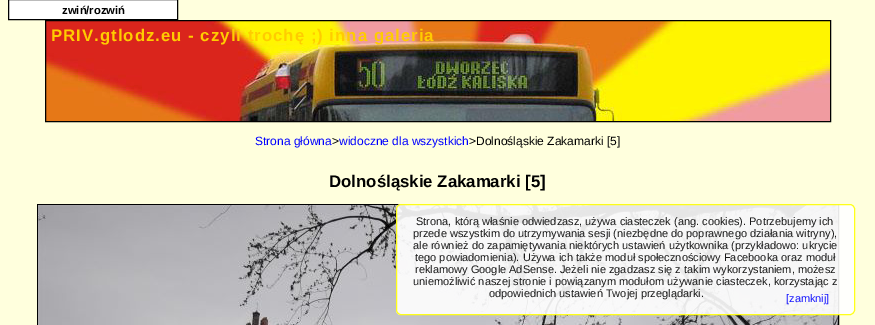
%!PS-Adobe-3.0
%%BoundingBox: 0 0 875 325
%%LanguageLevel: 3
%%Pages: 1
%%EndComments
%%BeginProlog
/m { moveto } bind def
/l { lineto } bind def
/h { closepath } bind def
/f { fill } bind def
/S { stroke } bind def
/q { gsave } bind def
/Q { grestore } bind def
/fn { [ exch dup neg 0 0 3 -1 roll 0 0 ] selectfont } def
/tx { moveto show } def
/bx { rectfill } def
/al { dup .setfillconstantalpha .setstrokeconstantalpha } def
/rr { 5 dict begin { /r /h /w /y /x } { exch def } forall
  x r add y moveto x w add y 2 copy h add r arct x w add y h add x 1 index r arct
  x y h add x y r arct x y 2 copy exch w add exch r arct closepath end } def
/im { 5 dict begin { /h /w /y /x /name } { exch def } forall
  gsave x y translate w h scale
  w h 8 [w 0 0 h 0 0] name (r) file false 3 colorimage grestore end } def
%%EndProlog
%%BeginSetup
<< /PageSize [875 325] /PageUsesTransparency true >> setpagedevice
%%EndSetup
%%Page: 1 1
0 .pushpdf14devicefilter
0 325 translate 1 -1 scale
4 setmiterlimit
1 1 0.867 setrgbcolor
0 0 875 325 bx
1 setgray
8.5 -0.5 m 177.5 -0.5 l 177.5 19.5 l 8.5 19.5 l h q f Q
0 setgray
S
/LiberationSans-Bold 11.25 fn
(zwiń/rozwiń) 62 14 tx
(image0.raw) 46 21 784 100 im
45.5 20.5 785 101 rectstroke
/LiberationSans-Bold 16.8 fn
1 0.8 0 setrgbcolor
51 41 m 1 0 (PRIV.gtlodz.eu - czyli trochę ;\) inna galeria) ashow
/LiberationSans-Regular 12 fn
0 0 1 setrgbcolor
(Strona główna) 255 145 tx
0 setgray
(>) 332 145 tx
0 0 1 setrgbcolor
(widoczne dla wszystkich) 339 145 tx
0 setgray
(>Dolnośląskie Zakamarki [5]) 469 145 tx
/LiberationSans-Bold 16.8 fn
(Dolnośląskie Zakamarki [5]) 329 187 tx
37.5 204.5 801 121 rectstroke
(image1.raw) 38 205 800 120 im
0.9 al
1 setgray
396 204 459 111 5 rr f
1 1 0 setrgbcolor
396.5 204.5 458 110 4.5 rr S
/LiberationSans-Regular 11 fn
1 al
0.094 setgray
(Strona, którą właśnie odwiedzasz, używa ciasteczek \(ang. cookies\). Potrzebujemy ich) 416 225 tx
(przede wszystkim do utrzymywania sesji \(niezbędne do poprawnego działania witryny\),) 413 237 tx
(ale również do zapamiętywania niektórych ustawień użytkownika \(przykładowo: ukrycie) 413 249 tx
(tego powiadomienia\). Używa ich także moduł społecznościowy Facebooka oraz moduł) 415 261 tx
(reklamowy Google AdSense. Jeżeli nie zgadzasz się z takim wykorzystaniem, możesz) 415 273 tx
(uniemożliwić naszej stronie i powiązanym modułom używanie ciasteczek, korzystając z) 413 285 tx
(odpowiednich ustawień Twojej przeglądarki.) 489 297 tx
0.098 0.098 0.996 setrgbcolor
([zamknij]) 786 302 tx
.poppdf14devicefilter showpage
%%EOF
